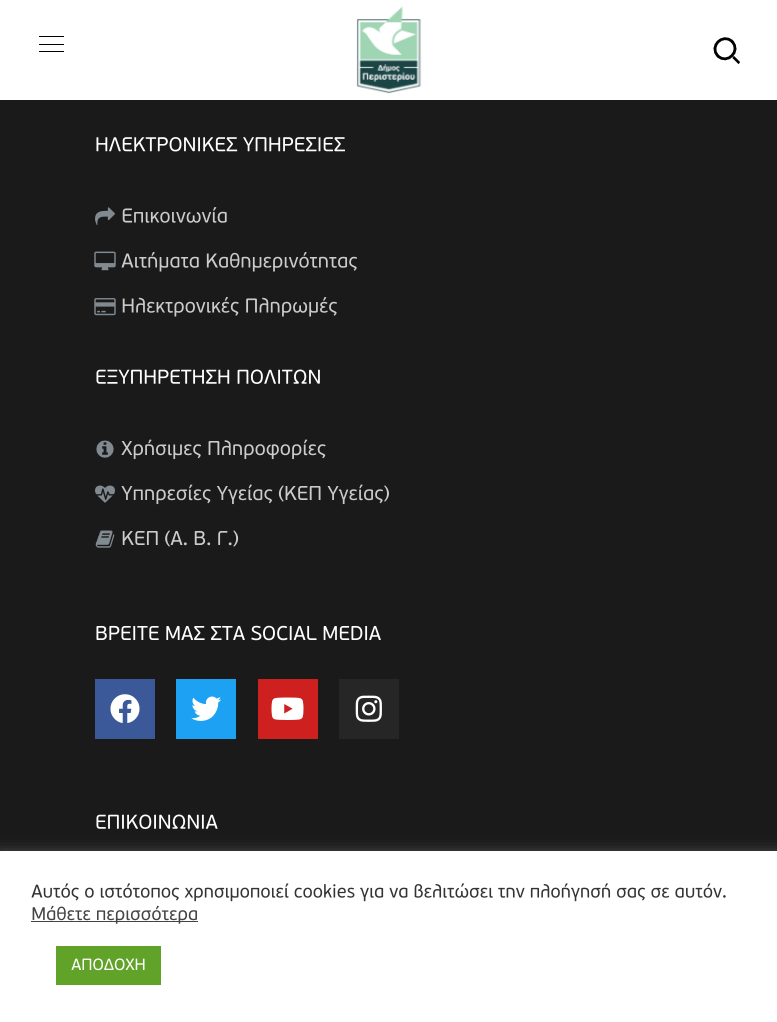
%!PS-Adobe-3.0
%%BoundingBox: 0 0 777 1022
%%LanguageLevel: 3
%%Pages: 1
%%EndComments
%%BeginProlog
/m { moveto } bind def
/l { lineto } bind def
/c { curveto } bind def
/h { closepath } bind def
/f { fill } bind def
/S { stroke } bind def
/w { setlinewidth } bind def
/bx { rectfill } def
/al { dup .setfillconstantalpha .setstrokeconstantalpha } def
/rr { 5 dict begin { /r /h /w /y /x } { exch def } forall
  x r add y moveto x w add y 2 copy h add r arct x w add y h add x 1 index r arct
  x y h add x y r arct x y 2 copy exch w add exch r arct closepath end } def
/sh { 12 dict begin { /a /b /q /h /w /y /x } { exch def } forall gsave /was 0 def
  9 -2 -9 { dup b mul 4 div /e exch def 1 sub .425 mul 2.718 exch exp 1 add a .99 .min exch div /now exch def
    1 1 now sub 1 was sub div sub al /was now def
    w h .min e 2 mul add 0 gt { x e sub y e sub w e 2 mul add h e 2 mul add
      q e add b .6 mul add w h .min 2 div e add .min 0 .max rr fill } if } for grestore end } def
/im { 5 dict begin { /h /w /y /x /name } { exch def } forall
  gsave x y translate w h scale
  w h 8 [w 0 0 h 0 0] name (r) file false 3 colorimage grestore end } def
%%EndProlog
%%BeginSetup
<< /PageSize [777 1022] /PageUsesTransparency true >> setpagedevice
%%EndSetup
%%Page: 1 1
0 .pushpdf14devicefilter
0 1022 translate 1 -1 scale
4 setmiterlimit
0.102 setgray
0 0 777 1022 bx
1 setgray
0 0 777 100 bx
0 setgray
39 36 25 1 bx
39 44 25 1 bx
39 51 25 1 bx
(image0.raw) 356 6 66 88 im
2.5 w
732 41.5 m 741.5 51 727 65 718 56 c 708.5 46.5 723 32.5 732 41.5 c h S
732.5 58 m 734 56 l 740 62 l 738.5 64 l h f
(image1.raw) 96 137 249 15 im
(image2.raw) 95 207 20 19 im
(image3.raw) 122 207 105 16 im
(image4.raw) 94 251 22 20 im
(image5.raw) 121 252 236 20 im
(image6.raw) 94 298 22 18 im
(image7.raw) 122 297 215 20 im
(image8.raw) 96 369 224 15 im
(image9.raw) 96 440 18 18 im
(image10.raw) 121 439 205 21 im
(image11.raw) 95 485 20 18 im
(image12.raw) 121 484 268 21 im
(image13.raw) 95 530 20 18 im
(image14.raw) 122 530 117 17 im
(image15.raw) 96 625 285 16 im
0.231 0.349 0.596 setrgbcolor
95 679 60 60 bx
(image16.raw) 110 694 30 29 im
0.114 0.631 0.949 setrgbcolor
176 679 60 60 bx
(image17.raw) 191 696 31 25 im
0.804 0.125 0.122 setrgbcolor
258 679 60 60 bx
(image18.raw) 271 697 33 23 im
0.149 setgray
339 679 60 60 bx
(image19.raw) 355 695 27 27 im
(image20.raw) 96 814 122 15 im
0.675 0.671 0.671 setrgbcolor
0 850 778 171 0 6 0.3 sh
1 setgray
0 851 777 171 bx
(image21.raw) 31 883 695 19 im
0.267 setgray
31 921 167 1 bx
(image22.raw) 32 905 165 19 im
0.38 0.635 0.161 setrgbcolor
56 946 105 39 bx
(image23.raw) 71 958 74 13 im
.poppdf14devicefilter showpage
%%EOF
